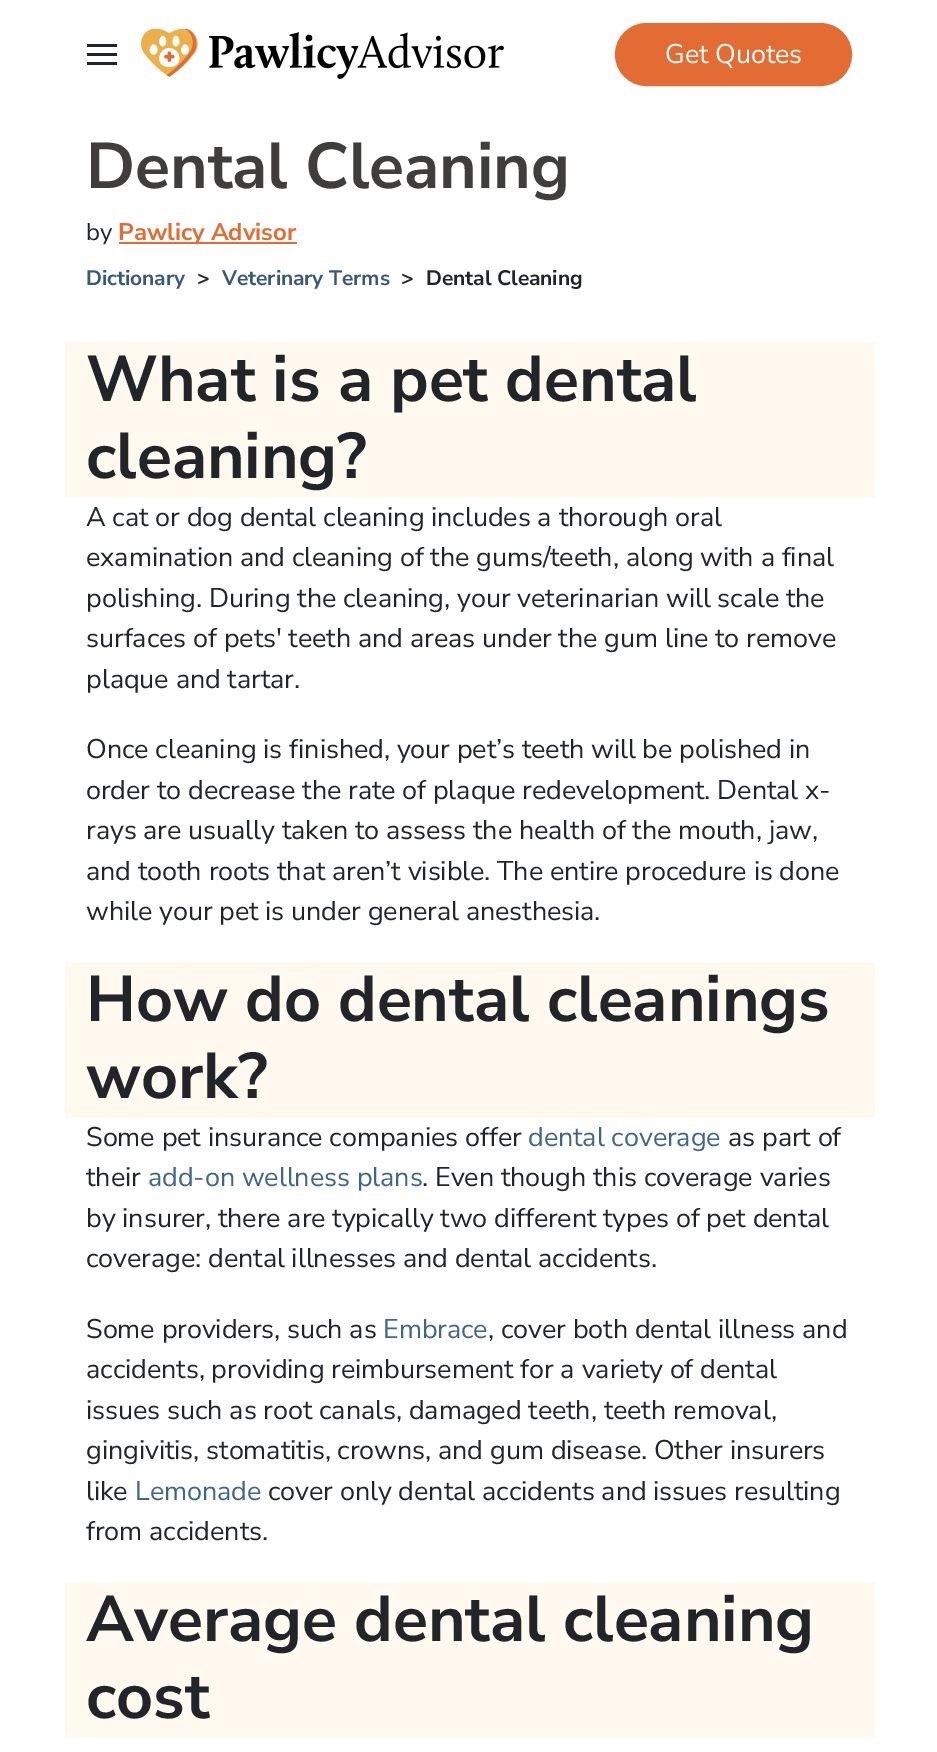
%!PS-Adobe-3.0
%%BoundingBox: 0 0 937 1752
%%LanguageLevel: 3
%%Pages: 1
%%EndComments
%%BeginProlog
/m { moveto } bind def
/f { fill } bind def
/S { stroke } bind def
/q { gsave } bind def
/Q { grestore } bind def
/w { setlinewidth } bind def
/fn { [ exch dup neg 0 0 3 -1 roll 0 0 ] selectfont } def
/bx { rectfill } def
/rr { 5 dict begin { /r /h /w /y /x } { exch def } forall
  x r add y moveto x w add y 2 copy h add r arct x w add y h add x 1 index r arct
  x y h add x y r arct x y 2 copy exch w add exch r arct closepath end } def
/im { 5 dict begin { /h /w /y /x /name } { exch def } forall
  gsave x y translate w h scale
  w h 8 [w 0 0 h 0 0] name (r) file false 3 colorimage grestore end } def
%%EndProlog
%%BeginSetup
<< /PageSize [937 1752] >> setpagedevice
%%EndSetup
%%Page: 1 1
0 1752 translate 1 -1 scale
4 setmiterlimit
1 setgray
0 0 937 1752 bx
0.129 0.145 0.161 setrgbcolor
87 44 30 3 bx
87 53 30 3 bx
87 62 30 3 bx
(image0.raw) 141 29 363 50 im
0.886 0.424 0.2 setrgbcolor
616 24 235 61 30.5 rr q f Q
2 w
S
/NunitoSans-Regular 27 fn
1 setgray
665 63 m -0.1 0 (Get Quotes) ashow
/NunitoSans-Bold 64.5 fn
0.251 0.243 0.235 setrgbcolor
86 188 m -0.1 0 (Dental Cleaning) ashow
/NunitoSans-Regular 24 fn
0.129 0.145 0.161 setrgbcolor
86 240 m -0.1 0 (by) ashow
0.886 0.424 0.2 setrgbcolor
119 242 178 2 bx
/NunitoSans-Bold 24 fn
118 240 m -0.1 0 (Pawlicy Advisor) ashow
/NunitoSans-Bold 21 fn
0.22 0.353 0.478 setrgbcolor
86 285 m -0.1 0 (Dictionary) ashow
0.129 0.145 0.161 setrgbcolor
197 285 m -0.1 0 (>) ashow
0.22 0.353 0.478 setrgbcolor
222 285 m -0.1 0 (Veterinary Terms) ashow
0.129 0.145 0.161 setrgbcolor
401 285 m -0.1 0 (>) ashow
426 285 m -0.1 0 (Dental Cleaning) ashow
1 0.976 0.937 setrgbcolor
65 342 810 155 bx
/NunitoSans-Bold 64.5 fn
0.129 0.145 0.161 setrgbcolor
86 401 m -0.1 0 (What is a pet dental) ashow
86 478 m -0.1 0 (cleaning?) ashow
/NunitoSans-Regular 27 fn
86 526 m -0.1 0 (A cat or dog dental cleaning includes a thorough oral) ashow
86 566 m -0.1 0 (examination and cleaning of the gums/teeth, along with a final) ashow
86 607 m -0.1 0 (polishing. During the cleaning, your veterinarian will scale the) ashow
86 647 m -0.1 0 (surfaces of pets' teeth and areas under the gum line to remove) ashow
86 688 m -0.1 0 (plaque and tartar.) ashow
86 758 m -0.1 0 (Once cleaning is finished, your pet’s teeth will be polished in) ashow
86 799 m -0.1 0 (order to decrease the rate of plaque redevelopment. Dental x-) ashow
86 839 m -0.1 0 (rays are usually taken to assess the health of the mouth, jaw,) ashow
86 880 m -0.1 0 (and tooth roots that aren’t visible. The entire procedure is done) ashow
86 920 m -0.1 0 (while your pet is under general anesthesia.) ashow
1 0.976 0.937 setrgbcolor
65 962 810 156 bx
/NunitoSans-Bold 64.5 fn
0.129 0.145 0.161 setrgbcolor
86 1021 m -0.1 0 (How do dental cleanings) ashow
86 1098 m -0.1 0 (work?) ashow
/NunitoSans-Regular 27 fn
86 1146 m -0.1 0 (Some pet insurance companies offer) ashow
0.247 0.396 0.529 setrgbcolor
528 1146 m -0.1 0 (dental coverage) ashow
0.129 0.145 0.161 setrgbcolor
728 1146 m -0.1 0 (as part of) ashow
86 1186 m -0.1 0 (their) ashow
0.247 0.396 0.529 setrgbcolor
148 1186 m -0.1 0 (add-on wellness plans) ashow
0.129 0.145 0.161 setrgbcolor
422 1186 m -0.1 0 (. Even though this coverage varies) ashow
86 1227 m -0.1 0 (by insurer, there are typically two different types of pet dental) ashow
86 1267 m -0.1 0 (coverage: dental illnesses and dental accidents.) ashow
86 1338 m -0.1 0 (Some providers, such as) ashow
0.247 0.396 0.529 setrgbcolor
383 1338 m -0.1 0 (Embrace) ashow
0.129 0.145 0.161 setrgbcolor
488 1338 m -0.1 0 (, cover both dental illness and) ashow
86 1378 m -0.1 0 (accidents, providing reimbursement for a variety of dental) ashow
86 1419 m -0.1 0 (issues such as root canals, damaged teeth, teeth removal,) ashow
86 1459 m -0.1 0 (gingivitis, stomatitis, crowns, and gum disease. Other insurers) ashow
86 1500 m -0.1 0 (like) ashow
0.247 0.396 0.529 setrgbcolor
135 1500 m -0.1 0 (Lemonade) ashow
0.129 0.145 0.161 setrgbcolor
268 1500 m -0.1 0 (cover only dental accidents and issues resulting) ashow
86 1540 m -0.1 0 (from accidents.) ashow
1 0.976 0.937 setrgbcolor
65 1583 810 154 bx
/NunitoSans-Bold 64.5 fn
0.129 0.145 0.161 setrgbcolor
86 1641 m -0.1 0 (Average dental cleaning) ashow
86 1718 m -0.1 0 (cost) ashow
showpage
%%EOF
